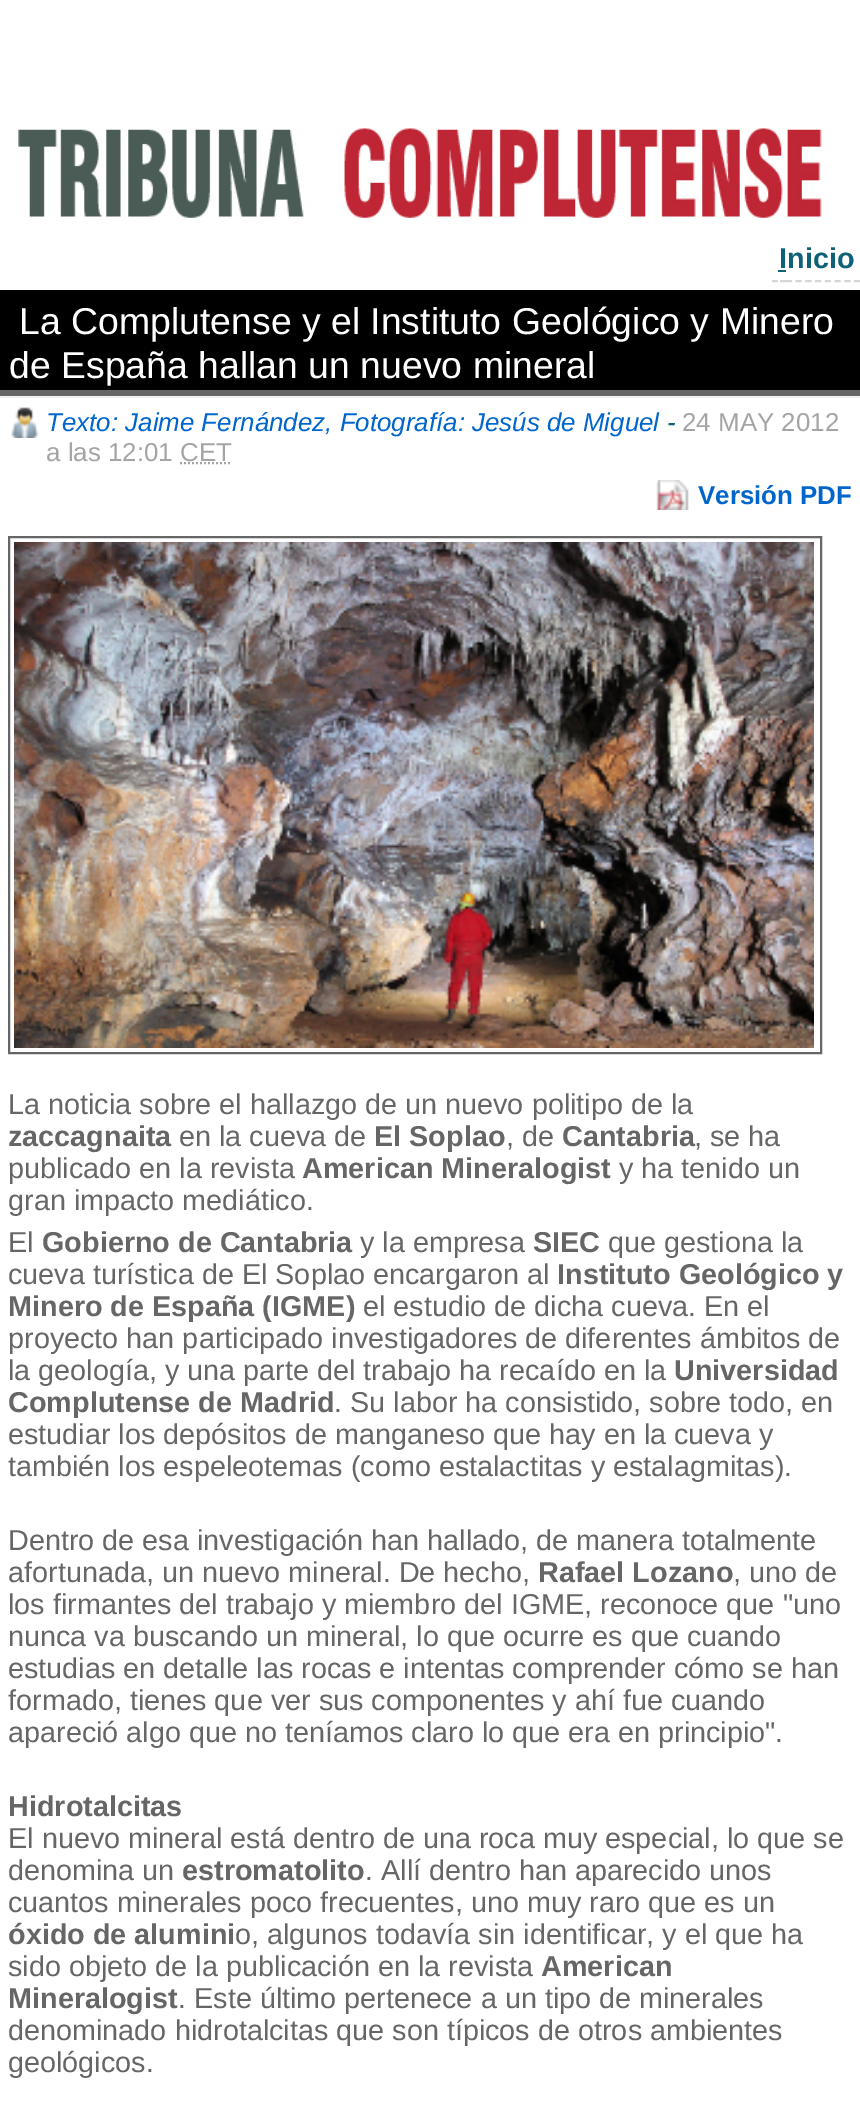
%!PS-Adobe-3.0
%%BoundingBox: 0 0 860 2119
%%LanguageLevel: 3
%%Pages: 1
%%EndComments
%%BeginProlog
/m { moveto } bind def
/l { lineto } bind def
/S { stroke } bind def
/w { setlinewidth } bind def
/fn { [ exch dup neg 0 0 3 -1 roll 0 0 ] selectfont } def
/tx { moveto show } def
/bx { rectfill } def
/al { dup .setfillconstantalpha .setstrokeconstantalpha } def
/rr { 5 dict begin { /r /h /w /y /x } { exch def } forall
  x r add y moveto x w add y 2 copy h add r arct x w add y h add x 1 index r arct
  x y h add x y r arct x y 2 copy exch w add exch r arct closepath end } def
/sh { 12 dict begin { /a /b /q /h /w /y /x } { exch def } forall gsave /was 0 def
  9 -2 -9 { dup b mul 4 div /e exch def 1 sub .425 mul 2.718 exch exp 1 add a .99 .min exch div /now exch def
    1 1 now sub 1 was sub div sub al /was now def
    w h .min e 2 mul add 0 gt { x e sub y e sub w e 2 mul add h e 2 mul add
      q e add b .6 mul add w h .min 2 div e add .min 0 .max rr fill } if } for grestore end } def
/im { 5 dict begin { /h /w /y /x /name } { exch def } forall
  gsave x y translate w h scale
  w h 8 [w 0 0 h 0 0] name (r) file false 3 colorimage grestore end } def
%%EndProlog
%%BeginSetup
<< /PageSize [860 2119] /PageUsesTransparency true >> setpagedevice
%%EndSetup
%%Page: 1 1
0 .pushpdf14devicefilter
0 2119 translate 1 -1 scale
4 setmiterlimit
1 setgray
0 0 860 2119 bx
(image0.raw) 18 128 804 90 im
/LiberationSans-Bold 28.8 fn
0.059 0.38 0.471 setrgbcolor
(Inicio) 779 268 tx
0.839 setgray
2 w
772 281 m 778 281 l 780 281 m 786 281 l S
[6 3.72] 0 setdash
786 281 m 860 281 l S
0.059 0.38 0.471 setrgbcolor
778 270 8 2 bx
0.961 0.969 0.976 setrgbcolor
0 396 860 2 bx
0 setgray
0 290 860 100 bx
0.4 setgray
0 390 860 6 bx
/LiberationSans-Regular 37.4 fn
1 setgray
(La Complutense y el Instituto Geológico y Minero) 19 334 tx
(de España hallan un nuevo mineral) 9 378 tx
0.486 0.549 0.58 setrgbcolor
0 404 860 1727 0 4 1 sh
1 setgray
0 398 860 1721 bx
(image1.raw) 11 407 28 31 im
/LiberationSans-Italic 25.9 fn
0 0.4 0.8 setrgbcolor
(Texto: Jaime Fernández, Fotografía: Jesús de Miguel) 46 431 tx
0.059 0.38 0.471 setrgbcolor
(-) 667 431 tx
/LiberationSans-Regular 25.9 fn
0.643 setgray
(24 MAY 2012) 682 431 tx
(a las 12:01 CET) 46 461 tx
[2 2] 0 setdash
180 463 m 232 463 l S
(image2.raw) 656 480 33 30 im
/LiberationSans-Bold 25.9 fn
0 0.4 0.8 setrgbcolor
(Versión PDF) 698 504 tx
0.4 setgray
[] 0 setdash
9 537 812 516 rectstroke
(image3.raw) 14 542 800 506 im
/LiberationSans-Regular 28.8 fn
(La noticia sobre el hallazgo de un nuevo politipo de la) 8 1114 tx
/LiberationSans-Bold 28.8 fn
(zaccagnaita) 8 1146 tx
/LiberationSans-Regular 28.8 fn
(en la cueva de) 179 1146 tx
/LiberationSans-Bold 28.8 fn
(El Soplao) 374 1146 tx
/LiberationSans-Regular 28.8 fn
(, de) 506 1146 tx
/LiberationSans-Bold 28.8 fn
(Cantabria) 562 1146 tx
/LiberationSans-Regular 28.8 fn
(, se ha) 694 1146 tx
(publicado en la revista) 8 1178 tx
/LiberationSans-Bold 28.8 fn
(American Mineralogist) 302 1178 tx
/LiberationSans-Regular 28.8 fn
(y ha tenido un) 619 1178 tx
(gran impacto mediático.) 8 1210 tx
(El) 8 1252 tx
/LiberationSans-Bold 28.8 fn
(Gobierno de Cantabria) 42 1252 tx
/LiberationSans-Regular 28.8 fn
(y la empresa) 360 1252 tx
/LiberationSans-Bold 28.8 fn
(SIEC) 533 1252 tx
/LiberationSans-Regular 28.8 fn
(que gestiona la) 608 1252 tx
(cueva turística de El Soplao encargaron al) 8 1284 tx
/LiberationSans-Bold 28.8 fn
(Instituto Geológico y) 557 1284 tx
(Minero de España \(IGME\)) 8 1316 tx
/LiberationSans-Regular 28.8 fn
(el estudio de dicha cueva. En el) 363 1316 tx
(proyecto han participado investigadores de diferentes ámbitos de) 8 1348 tx
(la geología, y una parte del trabajo ha recaído en la) 8 1380 tx
/LiberationSans-Bold 28.8 fn
(Universidad) 674 1380 tx
(Complutense de Madrid) 8 1412 tx
/LiberationSans-Regular 28.8 fn
(. Su labor ha consistido, sobre todo, en) 334 1412 tx
(estudiar los depósitos de manganeso que hay en la cueva y) 8 1444 tx
(también los espeleotemas \(como estalactitas y estalagmitas\).) 8 1476 tx
(Dentro de esa investigación han hallado, de manera totalmente) 8 1550 tx
(afortunada, un nuevo mineral. De hecho,) 8 1582 tx
/LiberationSans-Bold 28.8 fn
(Rafael Lozano) 538 1582 tx
/LiberationSans-Regular 28.8 fn
(, uno de) 733 1582 tx
(los firmantes del trabajo y miembro del IGME,) 8 1614 tx
(reconoce que "uno) 600 1614 tx
(nunca va buscando un mineral, lo que ocurre es que cuando) 8 1646 tx
(estudias en detalle las rocas e intentas comprender cómo se han) 8 1678 tx
(formado, tienes que ver sus componentes y ahí fue cuando) 8 1710 tx
(apareció algo que no teníamos claro lo que era en principio".) 8 1742 tx
/LiberationSans-Bold 28.8 fn
(Hidrotalcitas) 8 1816 tx
/LiberationSans-Regular 28.8 fn
(El nuevo mineral está dentro de una roca muy especial, lo que se) 8 1848 tx
(denomina un) 8 1880 tx
/LiberationSans-Bold 28.8 fn
(estromatolito) 182 1880 tx
/LiberationSans-Regular 28.8 fn
(. Allí dentro han aparecido unos) 365 1880 tx
(cuantos minerales poco frecuentes, uno muy raro que es un) 8 1912 tx
/LiberationSans-Bold 28.8 fn
(óxido de alumini) 8 1944 tx
/LiberationSans-Regular 28.8 fn
(o, algunos todavía sin identificar, y el que ha) 235 1944 tx
(sido objeto de la publicación en la revista) 8 1976 tx
/LiberationSans-Bold 28.8 fn
(American) 541 1976 tx
(Mineralogist) 8 2008 tx
/LiberationSans-Regular 28.8 fn
(. Este último pertenece a un tipo de minerales) 178 2008 tx
(denominado hidrotalcitas que son típicos de otros ambientes) 8 2040 tx
(geológicos.) 8 2072 tx
.poppdf14devicefilter showpage
%%EOF
